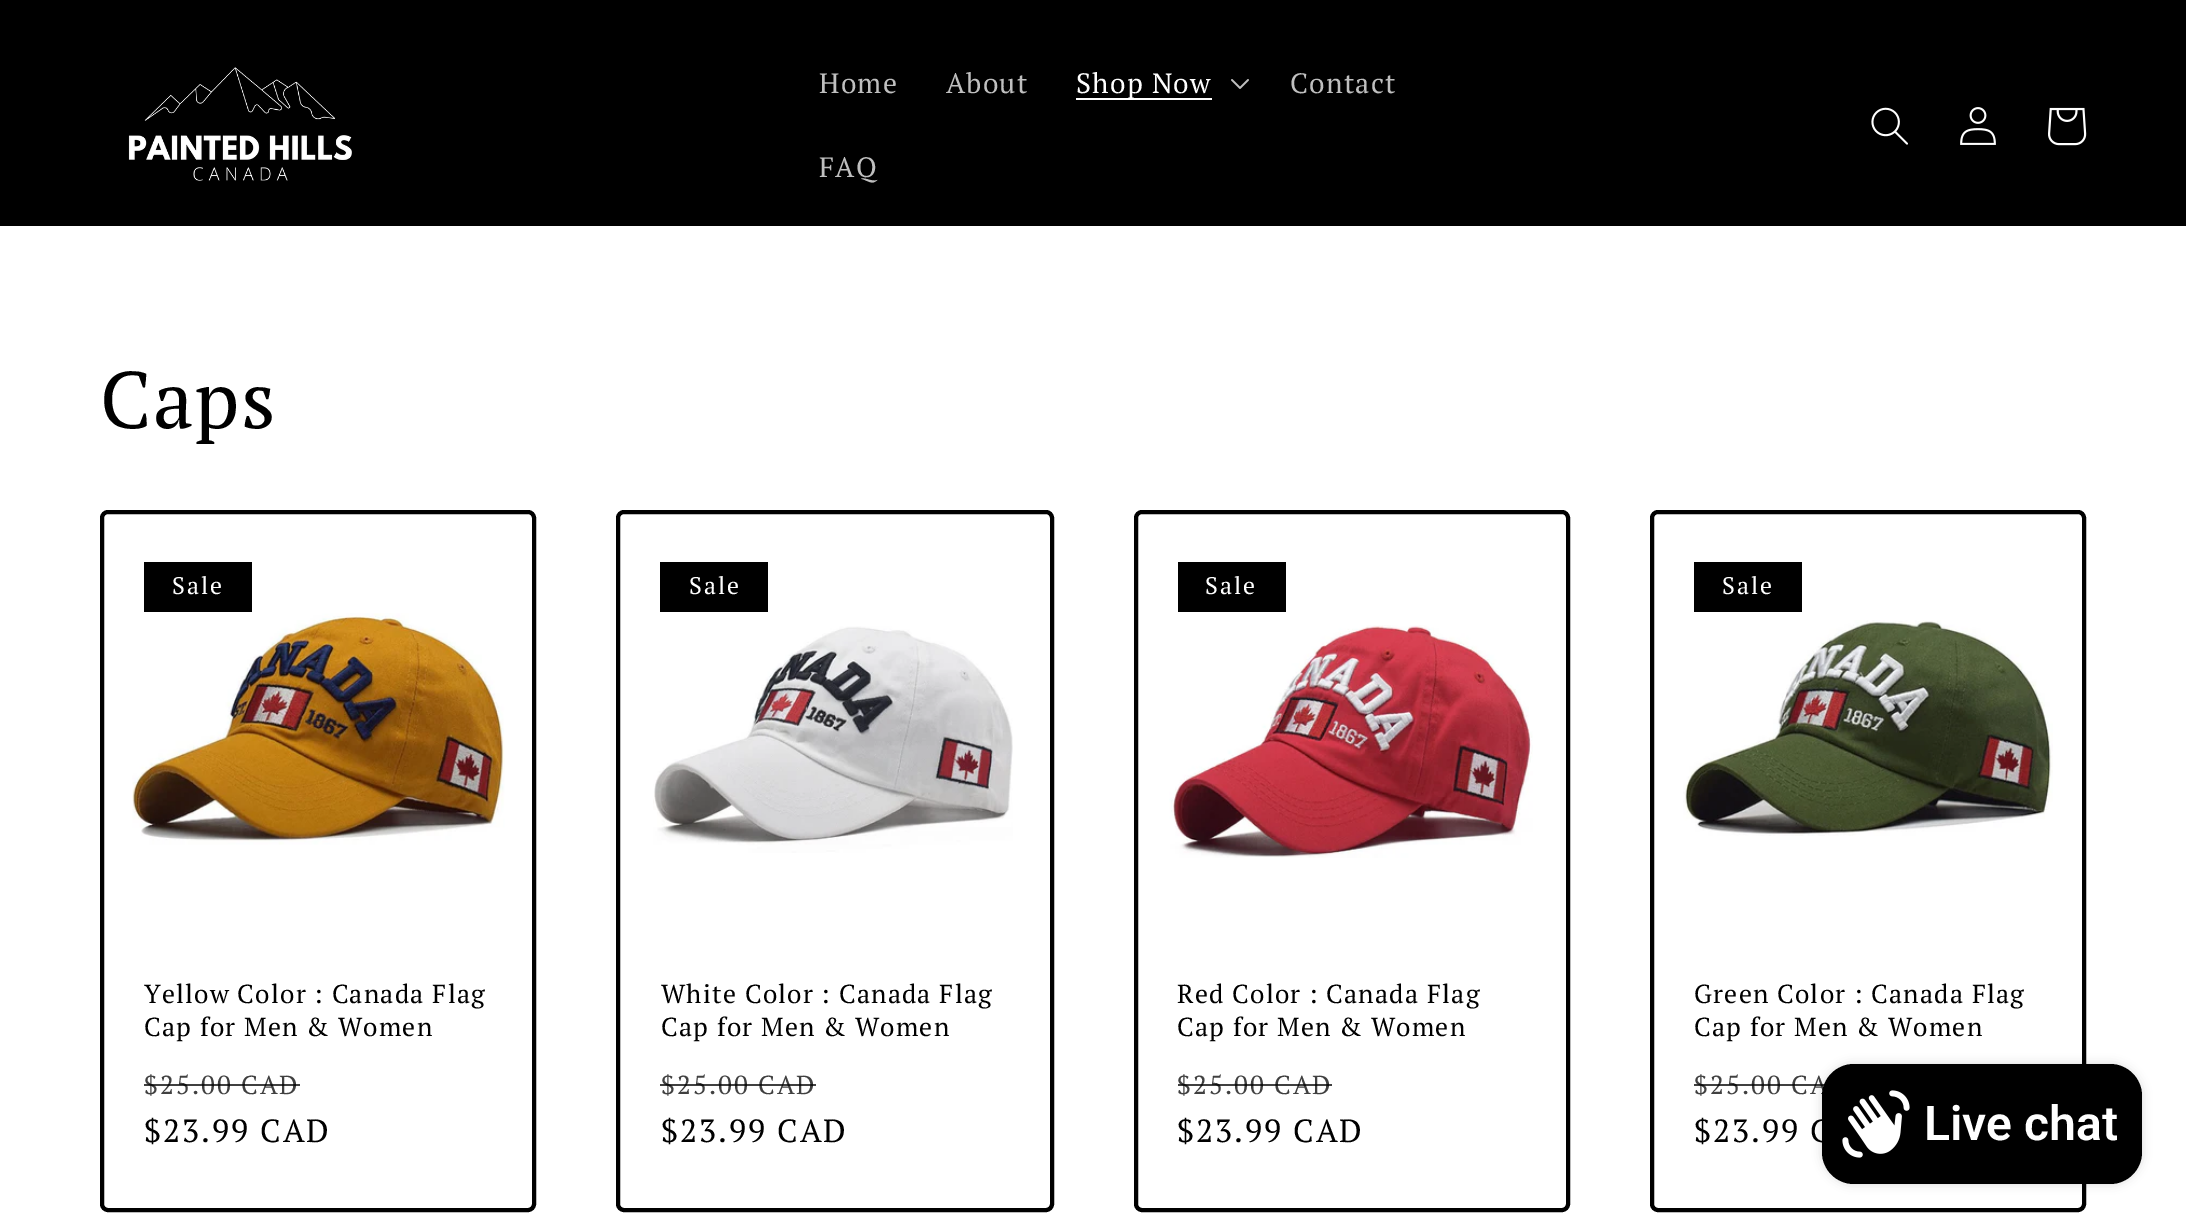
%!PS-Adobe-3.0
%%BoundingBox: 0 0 2186 1226
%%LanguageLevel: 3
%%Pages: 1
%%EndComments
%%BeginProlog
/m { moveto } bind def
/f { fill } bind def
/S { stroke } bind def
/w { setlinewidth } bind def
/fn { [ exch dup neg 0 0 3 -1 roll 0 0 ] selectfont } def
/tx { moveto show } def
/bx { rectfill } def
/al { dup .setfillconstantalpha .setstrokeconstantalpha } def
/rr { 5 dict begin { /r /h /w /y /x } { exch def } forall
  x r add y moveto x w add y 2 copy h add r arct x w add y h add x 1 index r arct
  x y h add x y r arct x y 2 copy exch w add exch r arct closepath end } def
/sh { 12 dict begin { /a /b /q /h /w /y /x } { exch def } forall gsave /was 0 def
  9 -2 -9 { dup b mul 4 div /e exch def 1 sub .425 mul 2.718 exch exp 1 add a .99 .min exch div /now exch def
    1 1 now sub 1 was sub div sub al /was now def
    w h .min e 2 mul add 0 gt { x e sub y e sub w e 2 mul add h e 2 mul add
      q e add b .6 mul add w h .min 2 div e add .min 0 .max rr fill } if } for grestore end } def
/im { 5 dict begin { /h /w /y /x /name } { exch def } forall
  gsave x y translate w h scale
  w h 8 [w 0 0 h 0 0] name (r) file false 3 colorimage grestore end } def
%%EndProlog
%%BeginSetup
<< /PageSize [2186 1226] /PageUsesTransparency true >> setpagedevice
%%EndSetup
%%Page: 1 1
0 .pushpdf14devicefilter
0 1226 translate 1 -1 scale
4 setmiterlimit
1 setgray
0 0 2186 1226 bx
0 setgray
0 0 2186 226 bx
(image0.raw) 128 67 224 114 im
/PTSerif-Regular 28 fn
0.749 setgray
819 93 m 1.2 0 (Home) ashow
946 93 m 1.2 0 (About) ashow
1 setgray
1076 98 136 2 bx
1076 93 m 1.2 0 (Shop Now) ashow
(image1.raw) 1231 79 18 10 im
0.749 setgray
1290 93 m 1.2 0 (Contact) ashow
819 177 m 1.2 0 (FAQ) ashow
(image2.raw) 1871 107 37 38 im
(image3.raw) 1960 107 36 38 im
(image4.raw) 2048 107 39 39 im
/PTSerif-Regular 80 fn
0 setgray
100 428 m 1.2 0 (Caps) ashow
4 w
102 512 432 698 6 rr S
144 562 108 50 bx
/PTSerif-Regular 24 fn
1 setgray
172 594 m 2 0 (Sale) ashow
(image5.raw) 132 613 373 232 im
/PTSerif-Regular 26 fn
0 setgray
144 1003 m 1.2 0 (Yellow Color : Canada Flag) ashow
144 1036 m 1.2 0 (Cap for Men & Women) ashow
0.251 setgray
144 1094 m 2 0 ($25.00 CAD) ashow
0.75 al
0 setgray
144 1084 156 2 bx
/PTSerif-Regular 32 fn
1 al
144 1142 m 2 0 ($23.99 CAD) ashow
618 512 434 698 6 rr S
660 562 108 50 bx
/PTSerif-Regular 24 fn
1 setgray
689 594 m 2 0 (Sale) ashow
(image6.raw) 653 626 360 227 im
/PTSerif-Regular 26 fn
0 setgray
661 1003 m 1.2 0 (White Color : Canada Flag) ashow
661 1036 m 1.2 0 (Cap for Men & Women) ashow
0.251 setgray
661 1094 m 2 0 ($25.00 CAD) ashow
0.75 al
0 setgray
660 1084 156 2 bx
/PTSerif-Regular 32 fn
1 al
661 1142 m 2 0 ($23.99 CAD) ashow
1136 512 432 698 6 rr S
1178 562 108 50 bx
/PTSerif-Regular 24 fn
1 setgray
1205 594 m 2 0 (Sale) ashow
(image7.raw) 1169 625 364 233 im
/PTSerif-Regular 26 fn
0 setgray
1177 1003 m 1.2 0 (Red Color : Canada Flag) ashow
1177 1036 m 1.2 0 (Cap for Men & Women) ashow
0.251 setgray
1177 1094 m 2 0 ($25.00 CAD) ashow
0.75 al
0 setgray
1178 1084 154 2 bx
/PTSerif-Regular 32 fn
1 al
1177 1142 m 2 0 ($23.99 CAD) ashow
1652 512 432 698 6 rr S
1694 562 108 50 bx
/PTSerif-Regular 24 fn
1 setgray
1722 594 m 2 0 (Sale) ashow
(image8.raw) 1683 620 370 216 im
/PTSerif-Regular 26 fn
0 setgray
1694 1003 m 1.2 0 (Green Color : Canada Flag) ashow
1694 1036 m 1.2 0 (Cap for Men & Women) ashow
0.251 setgray
1694 1094 m 2 0 ($25.00 CA) ashow
0.75 al
0 setgray
1694 1084 131 2 bx
/PTSerif-Regular 32 fn
1 al
1694 1142 m 2 0 ($23.99 C) ashow
1822 1064 320 120 32 5 0.15 sh
1822 1064 320 120 32 rr f
(image9.raw) 1842 1090 68 68 im
/Roboto-SemiBold 48 fn
1 setgray
(Live chat) 1924 1140 tx
.poppdf14devicefilter showpage
%%EOF
